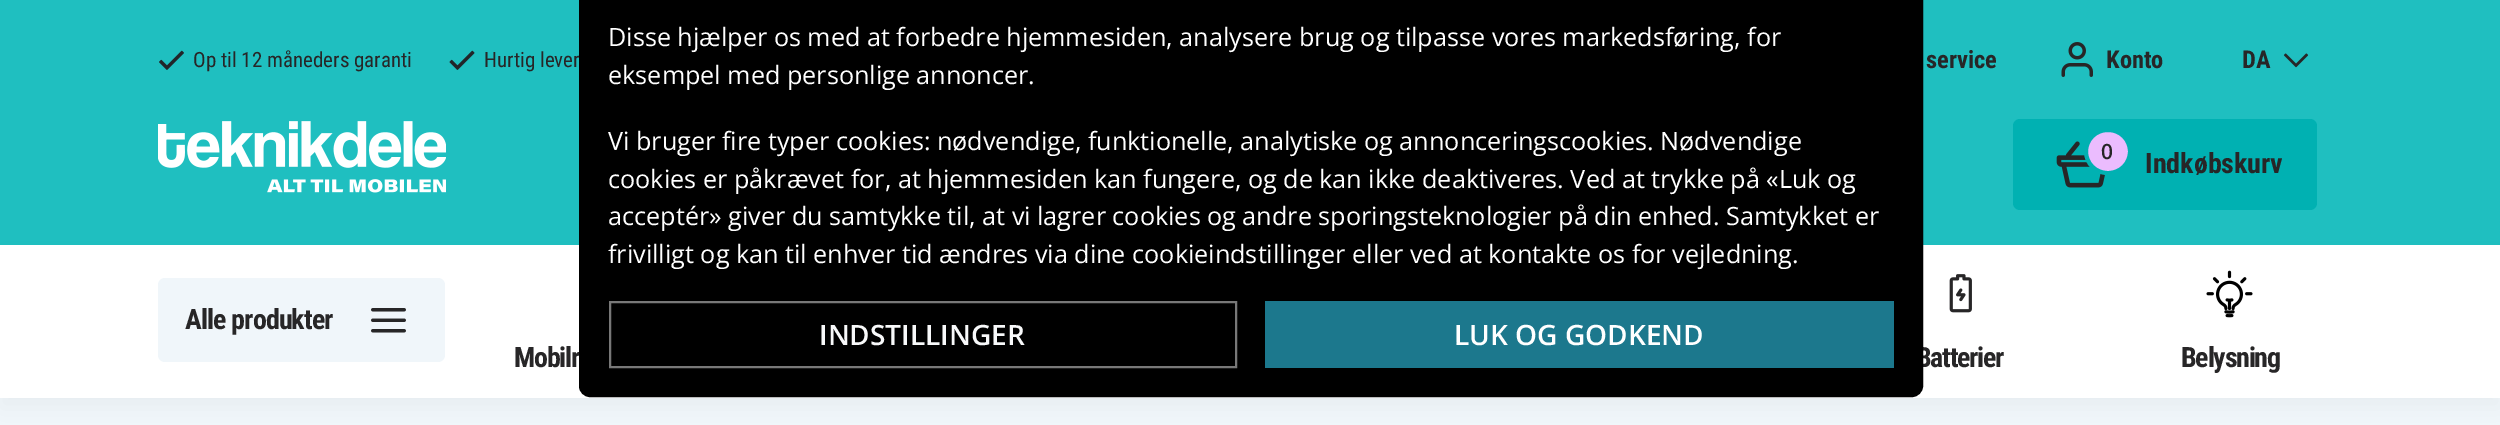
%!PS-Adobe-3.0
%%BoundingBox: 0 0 2500 425
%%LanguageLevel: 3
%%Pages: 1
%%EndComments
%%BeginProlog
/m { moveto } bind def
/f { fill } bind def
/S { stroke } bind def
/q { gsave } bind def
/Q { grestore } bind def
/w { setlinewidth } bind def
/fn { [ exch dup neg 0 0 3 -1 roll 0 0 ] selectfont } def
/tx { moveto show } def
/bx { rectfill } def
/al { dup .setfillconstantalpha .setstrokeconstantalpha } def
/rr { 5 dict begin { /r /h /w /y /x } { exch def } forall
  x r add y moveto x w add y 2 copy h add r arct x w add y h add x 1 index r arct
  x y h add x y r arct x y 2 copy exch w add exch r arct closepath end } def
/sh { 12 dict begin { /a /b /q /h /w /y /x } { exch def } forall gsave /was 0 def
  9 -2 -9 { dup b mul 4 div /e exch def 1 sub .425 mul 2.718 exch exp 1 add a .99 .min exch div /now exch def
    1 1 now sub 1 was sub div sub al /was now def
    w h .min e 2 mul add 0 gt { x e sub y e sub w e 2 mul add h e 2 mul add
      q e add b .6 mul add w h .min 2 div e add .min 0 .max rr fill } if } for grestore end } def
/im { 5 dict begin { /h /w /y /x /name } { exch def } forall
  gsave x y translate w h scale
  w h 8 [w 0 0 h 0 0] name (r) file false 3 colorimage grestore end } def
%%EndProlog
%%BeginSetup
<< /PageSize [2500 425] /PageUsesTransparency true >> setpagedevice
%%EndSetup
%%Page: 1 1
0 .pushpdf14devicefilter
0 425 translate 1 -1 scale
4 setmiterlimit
0.941 0.965 0.98 setrgbcolor
0 0 2500 425 bx
0.122 0.749 0.753 setrgbcolor
0 0 2500 245 bx
/RobotoCondensed-Regular 21 fn
0.153 0.149 0.153 setrgbcolor
(Hurtig lever) 484 67 tx
0 setgray
0 256 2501 152 0 11.5 0.04 sh
1 setgray
0 245 2500 153 bx
/RobotoCondensed-Bold 28 fn
0.153 0.149 0.153 setrgbcolor
514 367 m -1.25 0 (Mobilr) ashow
1916 367 m -1.25 0 (Batterier) ashow
0 setgray
580 -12 1342 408 10 rr q f Q
2 w
S
/OpenSans-Regular 25.2 fn
1 setgray
(Disse hjælper os med at forbedre hjemmesiden, analysere brug og tilpasse vores markedsføring, for) 608 46 tx
(eksempel med personlige annoncer.) 608 84 tx
(Vi bruger fire typer cookies: nødvendige, funktionelle, analytiske og annonceringscookies. Nødvendige) 608 150 tx
(cookies er påkrævet for, at hjemmesiden kan fungere, og de kan ikke deaktiveres. Ved at trykke på «Luk og) 608 188 tx
(acceptér» giver du samtykke til, at vi lagrer cookies og andre sporingsteknologier på din enhed. Samtykket er) 608 225 tx
(frivilligt og kan til enhver tid ændres via dine cookieindstillinger eller ved at kontakte os for vejledning.) 608 263 tx
0.471 setgray
610 302 626 65 rectstroke
/OpenSans-SemiBold 28 fn
0.973 0.976 0.98 setrgbcolor
(INDSTILLINGER) 819 345 tx
0.11 0.471 0.553 setrgbcolor
1265 301 629 67 bx
1 setgray
(LUK OG GODKEND) 1454 345 tx
(image0.raw) 159 50 25 20 im
/RobotoCondensed-Regular 21 fn
0.153 0.149 0.153 setrgbcolor
(Op til 12 måneders garanti) 193 67 tx
(image1.raw) 449 50 26 20 im
/RobotoCondensed-Bold 24.5 fn
(service) 1926 68 tx
(image2.raw) 2061 42 32 35 im
(Konto) 2106 68 tx
(DA) 2242 68 tx
(image3.raw) 2283 53 26 15 im
(image4.raw) 158 121 288 72 im
0 0.694 0.698 setrgbcolor
2013 119 304 91 7 rr f
(image5.raw) 2056 141 50 47 im
0.922 0.737 0.996 setrgbcolor
2086 130 44 43 21.5 rr q f Q
0 0.694 0.698 setrgbcolor
4 w
S
/OpenSans-SemiBold 21 fn
0.153 0.149 0.153 setrgbcolor
(0) 2101 159 tx
/RobotoCondensed-Bold 28 fn
(Indkøbskurv) 2145 173 tx
0.941 0.965 0.98 setrgbcolor
158 278 287 84 7 rr f
0.153 0.149 0.153 setrgbcolor
185 329 m -0.9 0 (Alle produkter) ashow
(image6.raw) 371 308 35 25 im
(image7.raw) 1949 274 23 39 im
(image8.raw) 2206 270 47 48 im
2181 367 m -1.25 0 (Belysning) ashow
.poppdf14devicefilter showpage
%%EOF
